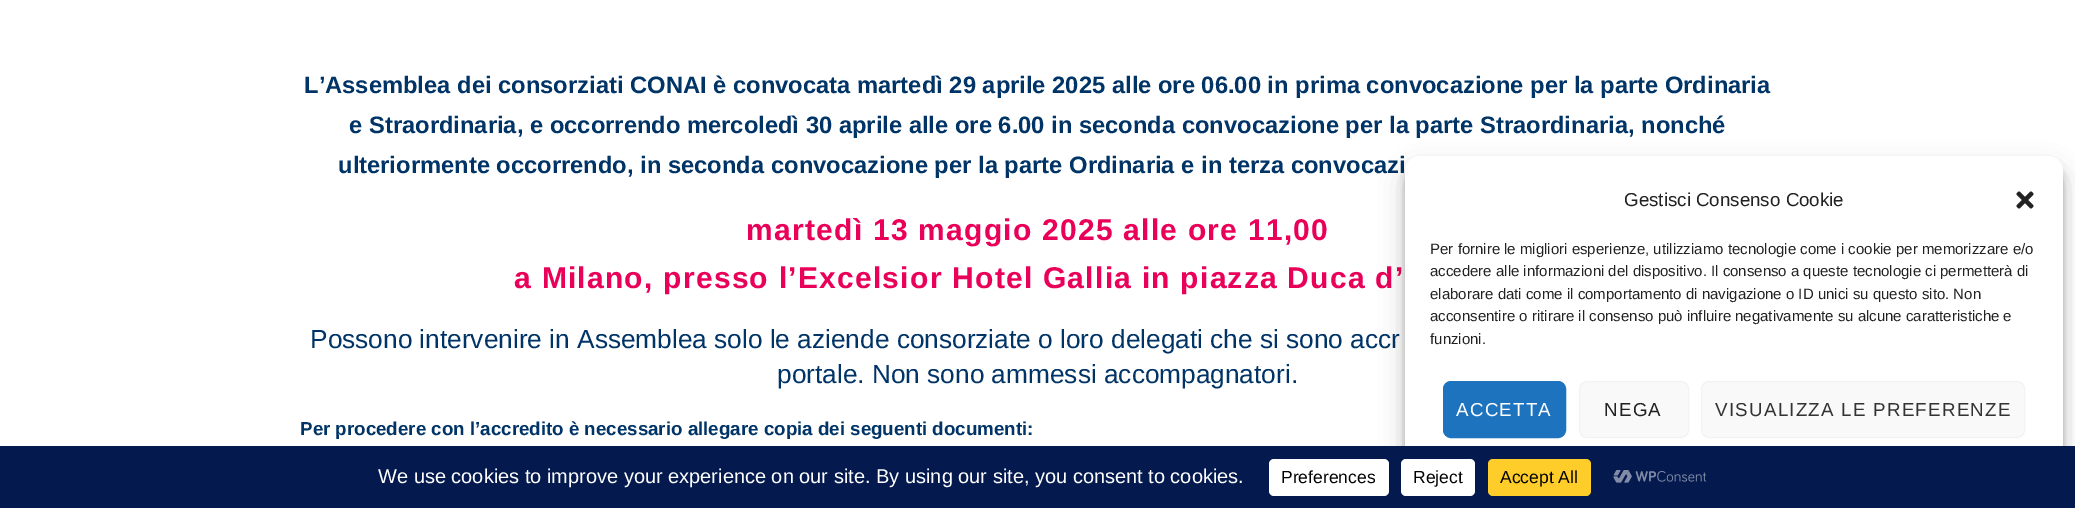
%!PS-Adobe-3.0
%%BoundingBox: 0 0 2075 508
%%LanguageLevel: 3
%%Pages: 1
%%EndComments
%%BeginProlog
/m { moveto } bind def
/f { fill } bind def
/S { stroke } bind def
/q { gsave } bind def
/Q { grestore } bind def
/fn { [ exch dup neg 0 0 3 -1 roll 0 0 ] selectfont } def
/tx { moveto show } def
/bx { rectfill } def
/al { dup .setfillconstantalpha .setstrokeconstantalpha } def
/rr { 5 dict begin { /r /h /w /y /x } { exch def } forall
  x r add y moveto x w add y 2 copy h add r arct x w add y h add x 1 index r arct
  x y h add x y r arct x y 2 copy exch w add exch r arct closepath end } def
/sh { 12 dict begin { /a /b /q /h /w /y /x } { exch def } forall gsave /was 0 def
  9 -2 -9 { dup b mul 4 div /e exch def 1 sub .425 mul 2.718 exch exp 1 add a .99 .min exch div /now exch def
    1 1 now sub 1 was sub div sub al /was now def
    w h .min e 2 mul add 0 gt { x e sub y e sub w e 2 mul add h e 2 mul add
      q e add b .6 mul add w h .min 2 div e add .min 0 .max rr fill } if } for grestore end } def
/im { 5 dict begin { /h /w /y /x /name } { exch def } forall
  gsave x y translate w h scale
  w h 8 [w 0 0 h 0 0] name (r) file false 3 colorimage grestore end } def
%%EndProlog
%%BeginSetup
<< /PageSize [2075 508] /PageUsesTransparency true >> setpagedevice
%%EndSetup
%%Page: 1 1
0 .pushpdf14devicefilter
0 508 translate 1 -1 scale
4 setmiterlimit
1 setgray
0 0 2075 508 bx
/LiberationSans-Bold 23.75 fn
0 0.2 0.4 setrgbcolor
(L’Assemblea dei consorziati CONAI è convocata martedì 29 aprile 2025 alle ore 06.00 in prima convocazione per la parte Ordinaria) 304 93 tx
(e Straordinaria, e occorrendo mercoledì 30 aprile alle ore 6.00 in seconda convocazione per la parte Straordinaria, nonché) 349 133 tx
(ulteriormente occorrendo, in seconda convocazione per la parte Ordinaria e in terza convocazi) 338 173 tx
/LiberationSans-Bold 30 fn
0.914 0 0.349 setrgbcolor
746 240 m 1.25 0 (martedì 13 maggio 2025 alle ore 11,00) ashow
514 288 m 1.25 0 (a Milano, presso l’Excelsior Hotel Gallia in piazza Duca d’) ashow
/LiberationSans-Regular 26.25 fn
0 0.2 0.4 setrgbcolor
(Possono intervenire in Assemblea solo le aziende consorziate o loro delegati che si sono accr) 310 348 tx
(portale. Non sono ammessi accompagnatori.) 777 383 tx
/LiberationSans-Bold 18.75 fn
(Per procedere con l’accredito è necessario allegare copia dei seguenti documenti:) 300 435 tx
0 setgray
1405 164 658 340 15 4 0.23 sh
1405 169 658 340 15 12.5 0.19 sh
1 setgray
1405 156 658 340 15 rr f
/LiberationSans-Regular 18.75 fn
0.133 setgray
(Gestisci Consenso Cookie) 1624 206 tx
(image0.raw) 2016 191 18 18 im
/LiberationSans-Regular 15 fn
(Per fornire le migliori esperienze, utilizziamo tecnologie come i cookie per memorizzare e/o) 1430 254 tx
(accedere alle informazioni del dispositivo. Il consenso a queste tecnologie ci permetterà di) 1430 276 tx
(elaborare dati come il comportamento di navigazione o ID unici su questo sito. Non) 1430 299 tx
(acconsentire o ritirare il consenso può influire negativamente su alcune caratteristiche e) 1430 321 tx
(funzioni.) 1430 344 tx
0.118 0.451 0.745 setrgbcolor
1443.5 381.5 122 56 7.5 rr q f Q
S
/LiberationSans-Regular 18.75 fn
1 setgray
1456 416 m 1.25 0 (ACCETTA) ashow
0.976 setgray
1579.5 381.5 109 56 7.5 rr q f Q
0.949 setgray
S
0.133 setgray
1604 416 m 1.25 0 (NEGA) ashow
0.976 setgray
1701.5 381.5 323 56 7.5 rr q f Q
0.949 setgray
S
0.2 setgray
1715 416 m 1.25 0 (VISUALIZZA LE PREFERENZE) ashow
0.016 0.098 0.306 setrgbcolor
0 446 2075 62 bx
/LiberationSans-Regular 20 fn
1 setgray
(We use cookies to improve your experience on our site. By using our site, you consent to cookies.) 378 483 tx
1269 459 120 37 5 rr f
/LiberationSans-Regular 17.5 fn
0 setgray
(Preferences) 1281 483 tx
1 setgray
1401 459 74 37 5 rr f
0 setgray
(Reject) 1413 483 tx
1 0.804 0.165 setrgbcolor
1488 459 103 37 5 rr f
0 setgray
(Accept All) 1500 483 tx
(image1.raw) 1613 470 93 13 im
.poppdf14devicefilter showpage
%%EOF
